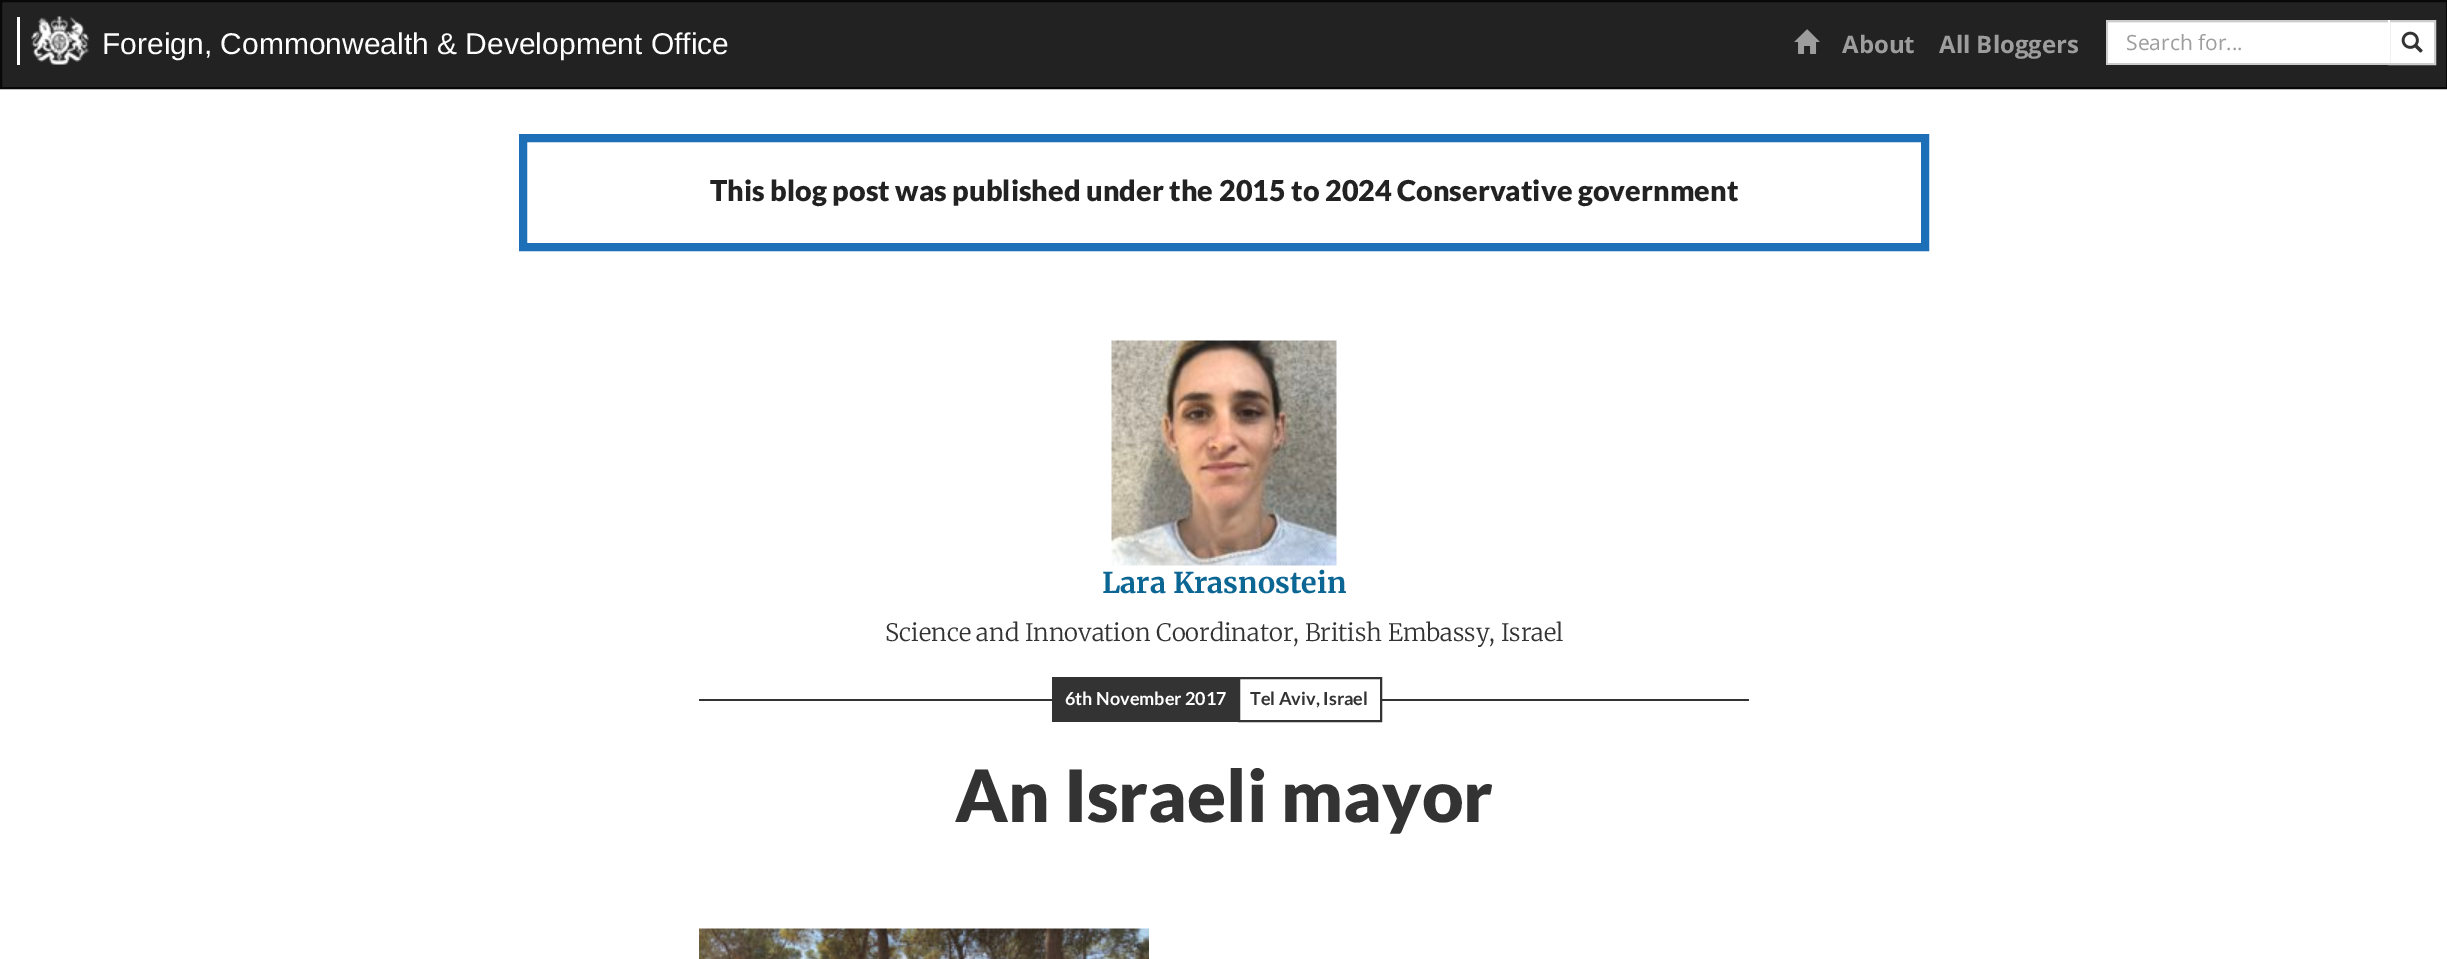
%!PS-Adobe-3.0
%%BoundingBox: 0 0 2447 959
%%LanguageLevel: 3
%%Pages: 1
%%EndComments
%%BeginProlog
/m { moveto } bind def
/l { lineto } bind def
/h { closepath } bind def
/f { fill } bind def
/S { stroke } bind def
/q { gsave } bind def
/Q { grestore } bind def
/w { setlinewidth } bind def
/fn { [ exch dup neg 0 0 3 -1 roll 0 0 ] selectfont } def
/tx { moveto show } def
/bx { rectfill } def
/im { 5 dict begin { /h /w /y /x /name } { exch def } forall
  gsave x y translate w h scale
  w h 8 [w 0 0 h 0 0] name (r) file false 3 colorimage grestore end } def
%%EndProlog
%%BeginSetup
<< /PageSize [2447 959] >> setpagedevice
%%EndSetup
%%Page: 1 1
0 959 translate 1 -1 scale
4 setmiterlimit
1 setgray
0 0 2447 959 bx
0.133 setgray
1 1 m 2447 1 l 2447 88 l 1 88 l h q f Q
0.031 setgray
2 w
S
(image0.raw) 31 16 58 49 im
1 setgray
17 17 3 48 bx
/LiberationSans-Regular 30 fn
(Foreign, Commonwealth & Development Office) 102 54 tx
(image1.raw) 1794 29 26 25 im
/OpenSans-Bold 24 fn
0.616 setgray
(About) 1842 53 tx
(All Bloggers) 1939 53 tx
1 setgray
2108 23 280 40 bx
0.925 setgray
2108 22 280 1 bx
1 setgray
2389 21 m 2435 21 l 2435 64 l 2389 64 l h q f Q
0.8 setgray
S
2106 20 284 2 bx
1 setgray
2388 20 2 45 bx
0.8 setgray
2106 63 284 2 bx
2106 20 2 45 bx
/OpenSans-Regular 21 fn
0.616 setgray
(Search for...) 2126 50 tx
(image2.raw) 2401 31 22 22 im
0.114 0.439 0.722 setrgbcolor
8 w
523 138 1402 109 rectstroke
/Lato-Black 28.75 fn
0.133 setgray
(This blog post was published under the) 710 201 tx
(2015 to 2024 Conservative government) 1219 201 tx
(image3.raw) 1111 340 226 226 im
/Merriweather-Bold 28.75 fn
0.047 0.4 0.58 setrgbcolor
(Lara Krasnostein) 1102 593 tx
/Merriweather-Light 24 fn
0.2 setgray
(Science and Innovation Coordinator, British Embassy, Israel) 885 641 tx
699 699 1050 2 bx
1052 677 186 45 bx
/Lato-Bold 18 fn
1 setgray
(6th November 2017) 1065 705 tx
1240 699 140 2 bx
0.2 setgray
2 w
1239 678 142 43 rectstroke
(Tel Aviv, Israel) 1250 705 tx
/Lato-Black 72 fn
(An Israeli mayor) 955 822 tx
(image4.raw) 699 928 450 31 im
showpage
%%EOF
